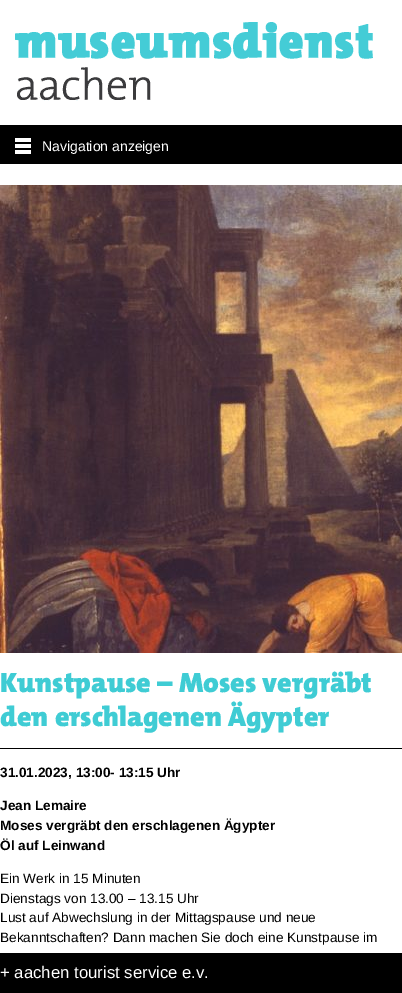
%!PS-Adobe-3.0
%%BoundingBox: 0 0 402 993
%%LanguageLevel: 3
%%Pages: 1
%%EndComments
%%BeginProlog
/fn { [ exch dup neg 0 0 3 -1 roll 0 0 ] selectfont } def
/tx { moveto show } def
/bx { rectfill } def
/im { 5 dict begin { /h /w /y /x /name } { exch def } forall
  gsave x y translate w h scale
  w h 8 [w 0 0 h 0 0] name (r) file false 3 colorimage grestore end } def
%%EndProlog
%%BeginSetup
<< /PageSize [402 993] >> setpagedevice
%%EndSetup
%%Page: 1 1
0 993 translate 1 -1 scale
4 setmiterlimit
1 setgray
0 0 402 993 bx
(image0.raw) 15 22 358 79 im
0 setgray
0 125 402 39 bx
(image1.raw) 15 138 16 16 im
/LiberationSans-Regular 14 fn
1 setgray
(Navigation anzeigen) 42 151 tx
(image2.raw) 0 185 402 468 im
0 setgray
0 748 402 1 bx
/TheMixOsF-Black 28 fn
0.247 0.8 0.831 setrgbcolor
(Kunstpause – Moses vergräbt) 0 692 tx
(den erschlagenen Ägypter) 0 726 tx
/LiberationSans-Bold 13.6 fn
0 setgray
(31.01.2023, 13:00- 13:15 Uhr) 0 777 tx
(Jean Lemaire) 0 810 tx
(Moses vergräbt den erschlagenen Ägypter) 0 830 tx
(Öl auf Leinwand) 0 850 tx
/LiberationSans-Regular 13.6 fn
(Ein Werk in 15 Minuten) 0 883 tx
(Dienstags von 13.00 – 13.15 Uhr) 0 903 tx
(Lust auf Abwechslung in der Mittagspause und neue) 0 922 tx
(Bekanntschaften? Dann machen Sie doch eine Kunstpause im) 0 942 tx
0 953 402 40 bx
/LiberationSans-Regular 16.75 fn
1 setgray
(+ aachen tourist service e.v.) 0 978 tx
showpage
%%EOF
